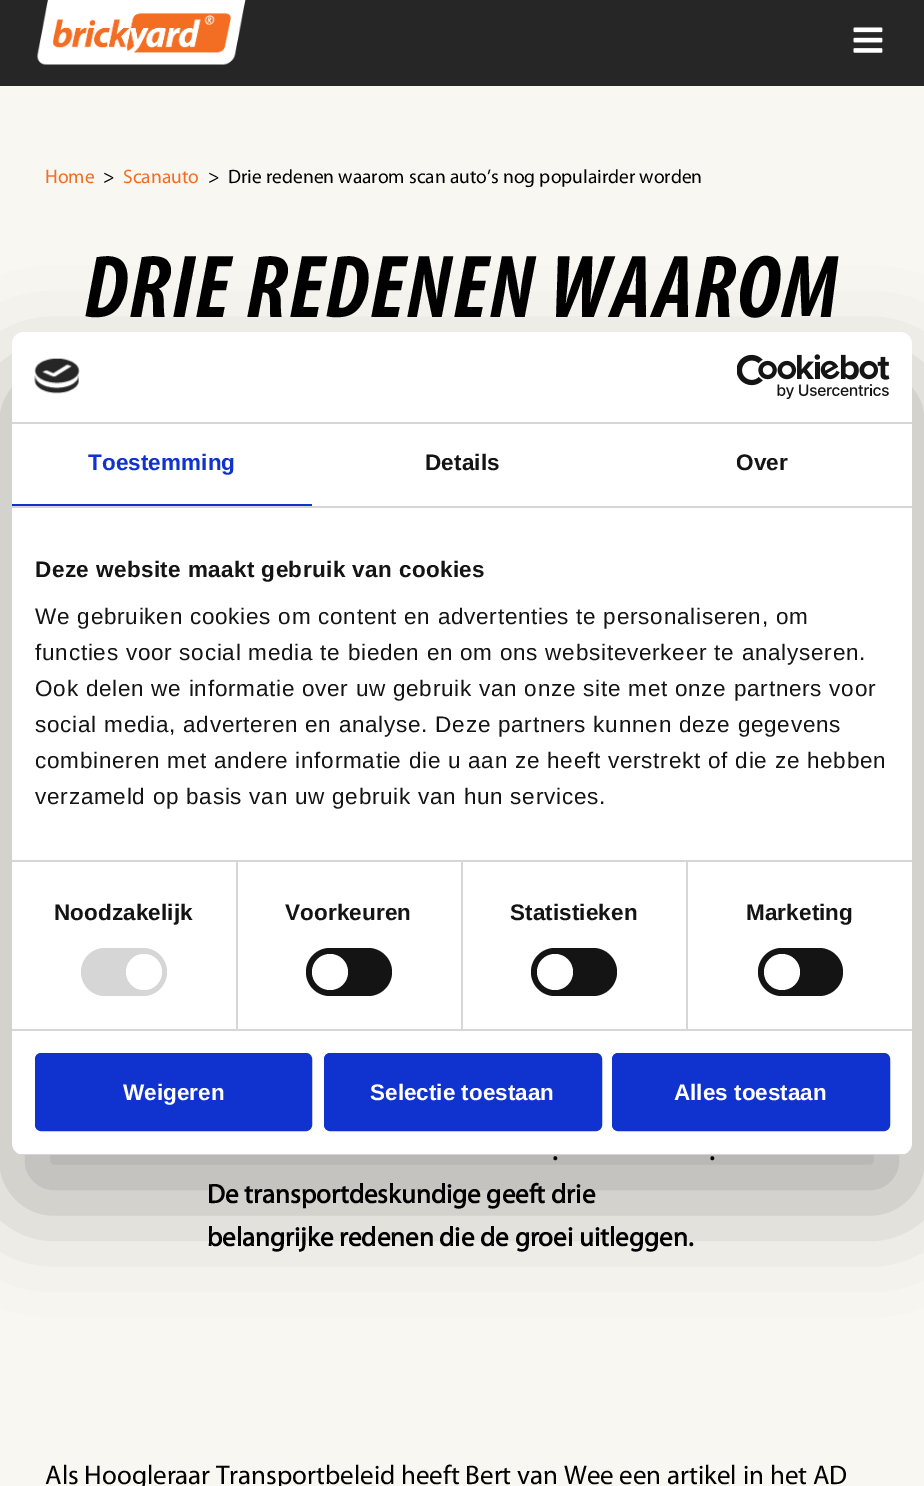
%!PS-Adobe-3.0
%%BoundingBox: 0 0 924 1486
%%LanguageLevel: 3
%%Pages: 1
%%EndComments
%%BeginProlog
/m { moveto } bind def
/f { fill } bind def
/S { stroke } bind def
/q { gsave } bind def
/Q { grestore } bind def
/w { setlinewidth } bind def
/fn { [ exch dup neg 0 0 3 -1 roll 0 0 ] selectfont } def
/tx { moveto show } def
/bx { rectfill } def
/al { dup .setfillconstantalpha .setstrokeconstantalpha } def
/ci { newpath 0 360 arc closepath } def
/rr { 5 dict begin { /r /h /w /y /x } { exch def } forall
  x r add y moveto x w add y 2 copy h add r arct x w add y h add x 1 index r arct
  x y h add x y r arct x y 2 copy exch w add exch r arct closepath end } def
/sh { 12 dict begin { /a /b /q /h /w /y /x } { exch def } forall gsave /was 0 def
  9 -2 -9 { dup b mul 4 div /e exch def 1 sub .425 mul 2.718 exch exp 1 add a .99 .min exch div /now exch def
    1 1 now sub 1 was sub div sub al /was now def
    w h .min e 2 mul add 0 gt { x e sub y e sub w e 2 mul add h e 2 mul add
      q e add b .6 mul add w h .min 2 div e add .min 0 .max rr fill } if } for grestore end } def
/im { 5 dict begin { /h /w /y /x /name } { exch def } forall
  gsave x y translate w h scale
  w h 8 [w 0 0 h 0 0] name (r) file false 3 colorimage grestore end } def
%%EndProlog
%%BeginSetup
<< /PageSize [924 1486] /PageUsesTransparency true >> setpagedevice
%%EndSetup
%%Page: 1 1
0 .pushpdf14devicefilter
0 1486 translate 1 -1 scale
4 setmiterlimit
0.976 0.969 0.949 setrgbcolor
0 0 924 1486 bx
0.149 setgray
0 0 924 86 bx
(image0.raw) 37 0 209 65 im
(image1.raw) 853 27 30 26 im
/Myriad-Regular 19.5 fn
0.953 0.427 0.137 setrgbcolor
(Home) 45 183 tx
0 setgray
(>) 103 183 tx
0.953 0.427 0.137 setrgbcolor
(Scanauto) 123 183 tx
0 setgray
(>) 208 183 tx
(Drie redenen waarom scan auto’s nog populairder worden) 228 183 tx
/Myriad-BoldItalic 90 fn
84 317 m 1.5 0 (DRIE REDENEN WAAROM) ashow
/Myriad-Bold 27 fn
(.) 552 1160 tx
(.) 709 1160 tx
(De transportdeskundige geeft drie) 207 1203 tx
(belangrijke redenen die de groei uitleggen.) 207 1246 tx
/Myriad-Regular 27 fn
(Als Hoogleraar Transportbeleid heeft Bert van Wee een artikel in het AD) 45 1484 tx
12 380 900 823 12 51 0.3 sh
1 setgray
12 332 900 823 12 rr f
0.839 setgray
12 422 900 2 bx
(image2.raw) 34 358 46 36 im
(image3.raw) 737 354 153 45 im
12 506 900 2 bx
0.063 0.196 0.812 setrgbcolor
12 504 300 2 bx
/LiberationSans-Bold 22.5 fn
88 470 m 0.1 0 (Toestemming) ashow
0.078 setgray
425 470 m 0.1 0 (Details) ashow
736 470 m 0.1 0 (Over) ashow
0.839 setgray
236 861 2 168 bx
461 861 2 168 bx
686 861 2 168 bx
12 860 900 2 bx
0.078 setgray
35 577 m 0.4 0 (Deze website maakt gebruik van cookies) ashow
/LiberationSans-Regular 22.5 fn
35 624 m 0.75 0 (We gebruiken cookies om content en advertenties te personaliseren, om) ashow
35 660 m 0.75 0 (functies voor social media te bieden en om ons websiteverkeer te analyseren.) ashow
35 696 m 0.75 0 (Ook delen we informatie over uw gebruik van onze site met onze partners voor) ashow
35 732 m 0.75 0 (social media, adverteren en analyse. Deze partners kunnen deze gegevens) ashow
35 768 m 0.75 0 (combineren met andere informatie die u aan ze heeft verstrekt of die ze hebben) ashow
35 804 m 0.75 0 (verzameld op basis van uw gebruik van hun services.) ashow
0.839 setgray
12 1029 900 2 bx
/LiberationSans-Bold 22.5 fn
0.078 setgray
54 920 m 0.1 0 (Noodzakelijk) ashow
0.839 setgray
81 948 86 48 24 rr f
1 setgray
144 972 18 ci f
0.078 setgray
285 920 m 0.1 0 (Voorkeuren) ashow
306 948 86 48 24 rr f
1 setgray
330 972 18 ci f
0.078 setgray
510 920 m 0.1 0 (Statistieken) ashow
531 948 86 48 24 rr f
1 setgray
555 972 18 ci f
0.078 setgray
746 920 m 0.1 0 (Marketing) ashow
758 948 85 48 24 rr f
1 setgray
782 972 18 ci f
q
12 332 900 823 12 rr clip newpath
0.839 setgray
12 1154 900 1 bx
Q
0.063 0.196 0.812 setrgbcolor
36.5 1054.5 274 75 4.5 rr q f Q
3 w
S
1 setgray
(Weigeren) 123 1100 tx
0.063 0.196 0.812 setrgbcolor
325.5 1054.5 275 75 4.5 rr q f Q
S
1 setgray
(Selectie toestaan) 370 1100 tx
0.063 0.196 0.812 setrgbcolor
613.5 1054.5 275 75 4.5 rr q f Q
S
1 setgray
(Alles toestaan) 674 1100 tx
.poppdf14devicefilter showpage
%%EOF
